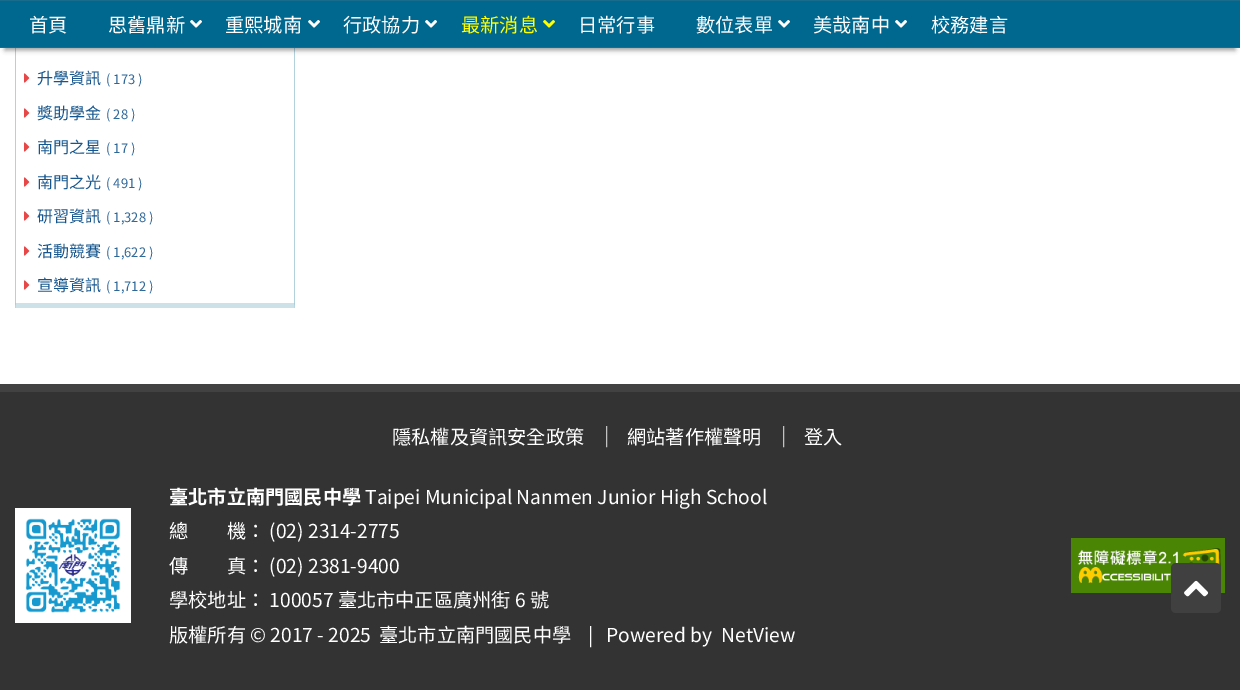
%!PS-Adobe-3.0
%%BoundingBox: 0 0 1240 690
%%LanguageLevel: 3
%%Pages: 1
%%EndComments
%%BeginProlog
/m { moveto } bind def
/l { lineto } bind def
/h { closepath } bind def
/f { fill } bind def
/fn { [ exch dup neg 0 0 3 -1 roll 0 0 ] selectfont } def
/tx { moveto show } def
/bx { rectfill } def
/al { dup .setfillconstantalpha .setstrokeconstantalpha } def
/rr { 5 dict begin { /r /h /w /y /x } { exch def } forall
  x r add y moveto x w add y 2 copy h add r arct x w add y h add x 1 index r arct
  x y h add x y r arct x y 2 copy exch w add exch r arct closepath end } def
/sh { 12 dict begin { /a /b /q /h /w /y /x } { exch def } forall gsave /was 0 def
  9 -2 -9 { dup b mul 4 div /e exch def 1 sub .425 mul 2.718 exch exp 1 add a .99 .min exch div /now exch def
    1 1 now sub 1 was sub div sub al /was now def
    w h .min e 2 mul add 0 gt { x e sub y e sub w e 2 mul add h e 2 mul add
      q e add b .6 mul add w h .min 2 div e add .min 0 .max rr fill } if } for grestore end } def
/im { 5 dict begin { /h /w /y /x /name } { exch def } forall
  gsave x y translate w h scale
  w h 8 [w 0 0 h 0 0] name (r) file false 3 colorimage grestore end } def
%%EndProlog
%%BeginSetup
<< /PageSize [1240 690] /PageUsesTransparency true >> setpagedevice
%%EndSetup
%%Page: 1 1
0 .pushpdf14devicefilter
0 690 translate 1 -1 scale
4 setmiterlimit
1 setgray
0 0 1240 690 bx
0.702 0.82 0.867 setrgbcolor
295 -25 m 295 308 l 294 303 l 294 -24 l h f
0.2 al
0 0.404 0.557 setrgbcolor
295 308 m 15 308 l 16 303 l 294 303 l h f
0.3 al
15 308 m 15 -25 l 16 -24 l 16 303 l h f
1 al
0 setgray
5 12 1230 38 0 2.5 0.4 sh
0 0.404 0.557 setrgbcolor
0 1 1240 46 bx
0.098 0.424 0.545 setrgbcolor
0 0 1240 1 bx
0 47 1240 1 bx
/NotoSansTC-Regular 19.2 fn
1 setgray
(首頁) 29 32 tx
(思舊鼎新) 108 32 tx
(image0.raw) 190 20 12 8 im
(重熙城南) 225 32 tx
(image0.raw) 308 20 12 8 im
(行政協力) 343 32 tx
(image0.raw) 425 20 12 8 im
1 1 0 setrgbcolor
(最新消息) 461 32 tx
(image1.raw) 543 20 12 8 im
1 setgray
(日常行事) 578 32 tx
(數位表單) 696 32 tx
(image0.raw) 778 20 12 8 im
(美哉南中) 813 32 tx
(image0.raw) 895 20 12 8 im
(校務建言) 931 32 tx
(image2.raw) 24 73 6 10 im
/NotoSansTC-Regular 16 fn
0.086 0.337 0.553 setrgbcolor
(升學資訊) 37 84 tx
/NotoSansTC-Regular 13 fn
0.176 0.404 0.596 setrgbcolor
(\( 173 \)) 106 84 tx
(image2.raw) 24 108 6 10 im
/NotoSansTC-Regular 16 fn
0.086 0.337 0.553 setrgbcolor
(獎助學金) 37 119 tx
/NotoSansTC-Regular 13 fn
0.176 0.404 0.596 setrgbcolor
(\( 28 \)) 106 119 tx
(image2.raw) 24 142 6 10 im
/NotoSansTC-Regular 16 fn
0.086 0.337 0.553 setrgbcolor
(南門之星) 37 153 tx
/NotoSansTC-Regular 13 fn
0.176 0.404 0.596 setrgbcolor
(\( 17 \)) 106 153 tx
(image2.raw) 24 177 6 10 im
/NotoSansTC-Regular 16 fn
0.086 0.337 0.553 setrgbcolor
(南門之光) 37 188 tx
/NotoSansTC-Regular 13 fn
0.176 0.404 0.596 setrgbcolor
(\( 491 \)) 106 188 tx
(image2.raw) 24 211 6 10 im
/NotoSansTC-Regular 16 fn
0.086 0.337 0.553 setrgbcolor
(研習資訊) 37 222 tx
/NotoSansTC-Regular 13 fn
0.176 0.404 0.596 setrgbcolor
(\( 1,328 \)) 106 222 tx
(image2.raw) 24 246 6 10 im
/NotoSansTC-Regular 16 fn
0.086 0.337 0.553 setrgbcolor
(活動競賽) 37 257 tx
/NotoSansTC-Regular 13 fn
0.176 0.404 0.596 setrgbcolor
(\( 1,622 \)) 106 257 tx
(image2.raw) 24 280 6 10 im
/NotoSansTC-Regular 16 fn
0.086 0.337 0.553 setrgbcolor
(宣導資訊) 37 291 tx
/NotoSansTC-Regular 13 fn
0.176 0.404 0.596 setrgbcolor
(\( 1,712 \)) 106 291 tx
0.2 setgray
0 392 1240 298 bx
0.259 setgray
0 384 1240 8 bx
/NotoSansTC-Regular 19.2 fn
1 setgray
(隱私權及資訊安全政策) 392 444 tx
0.761 setgray
(|) 604 442 tx
1 setgray
(網站著作權聲明) 627 444 tx
0.761 setgray
(|) 781 442 tx
1 setgray
(登入) 804 444 tx
(image3.raw) 15 508 116 115 im
/NotoSansTC-Bold 19.2 fn
(臺北市立南門國民中學) 169 504 tx
/NotoSansTC-Regular 19.2 fn
(Taipei Municipal Nanmen Junior High School) 365 504 tx
(總　　機： \(02\) 2314-2775) 169 538 tx
(傳　　真： \(02\) 2381-9400) 169 573 tx
(學校地址： 100057 臺北市中正區廣州街 6 號) 169 607 tx
(版權所有 © 2017 - 2025) 169 642 tx
(臺北市立南門國民中學) 379 642 tx
(|   Powered by) 588 642 tx
(NetView) 721 642 tx
(image4.raw) 1071 538 154 55 im
0.251 setgray
1171 563 50 50 5 rr f
(image5.raw) 1184 580 25 17 im
.poppdf14devicefilter showpage
%%EOF
